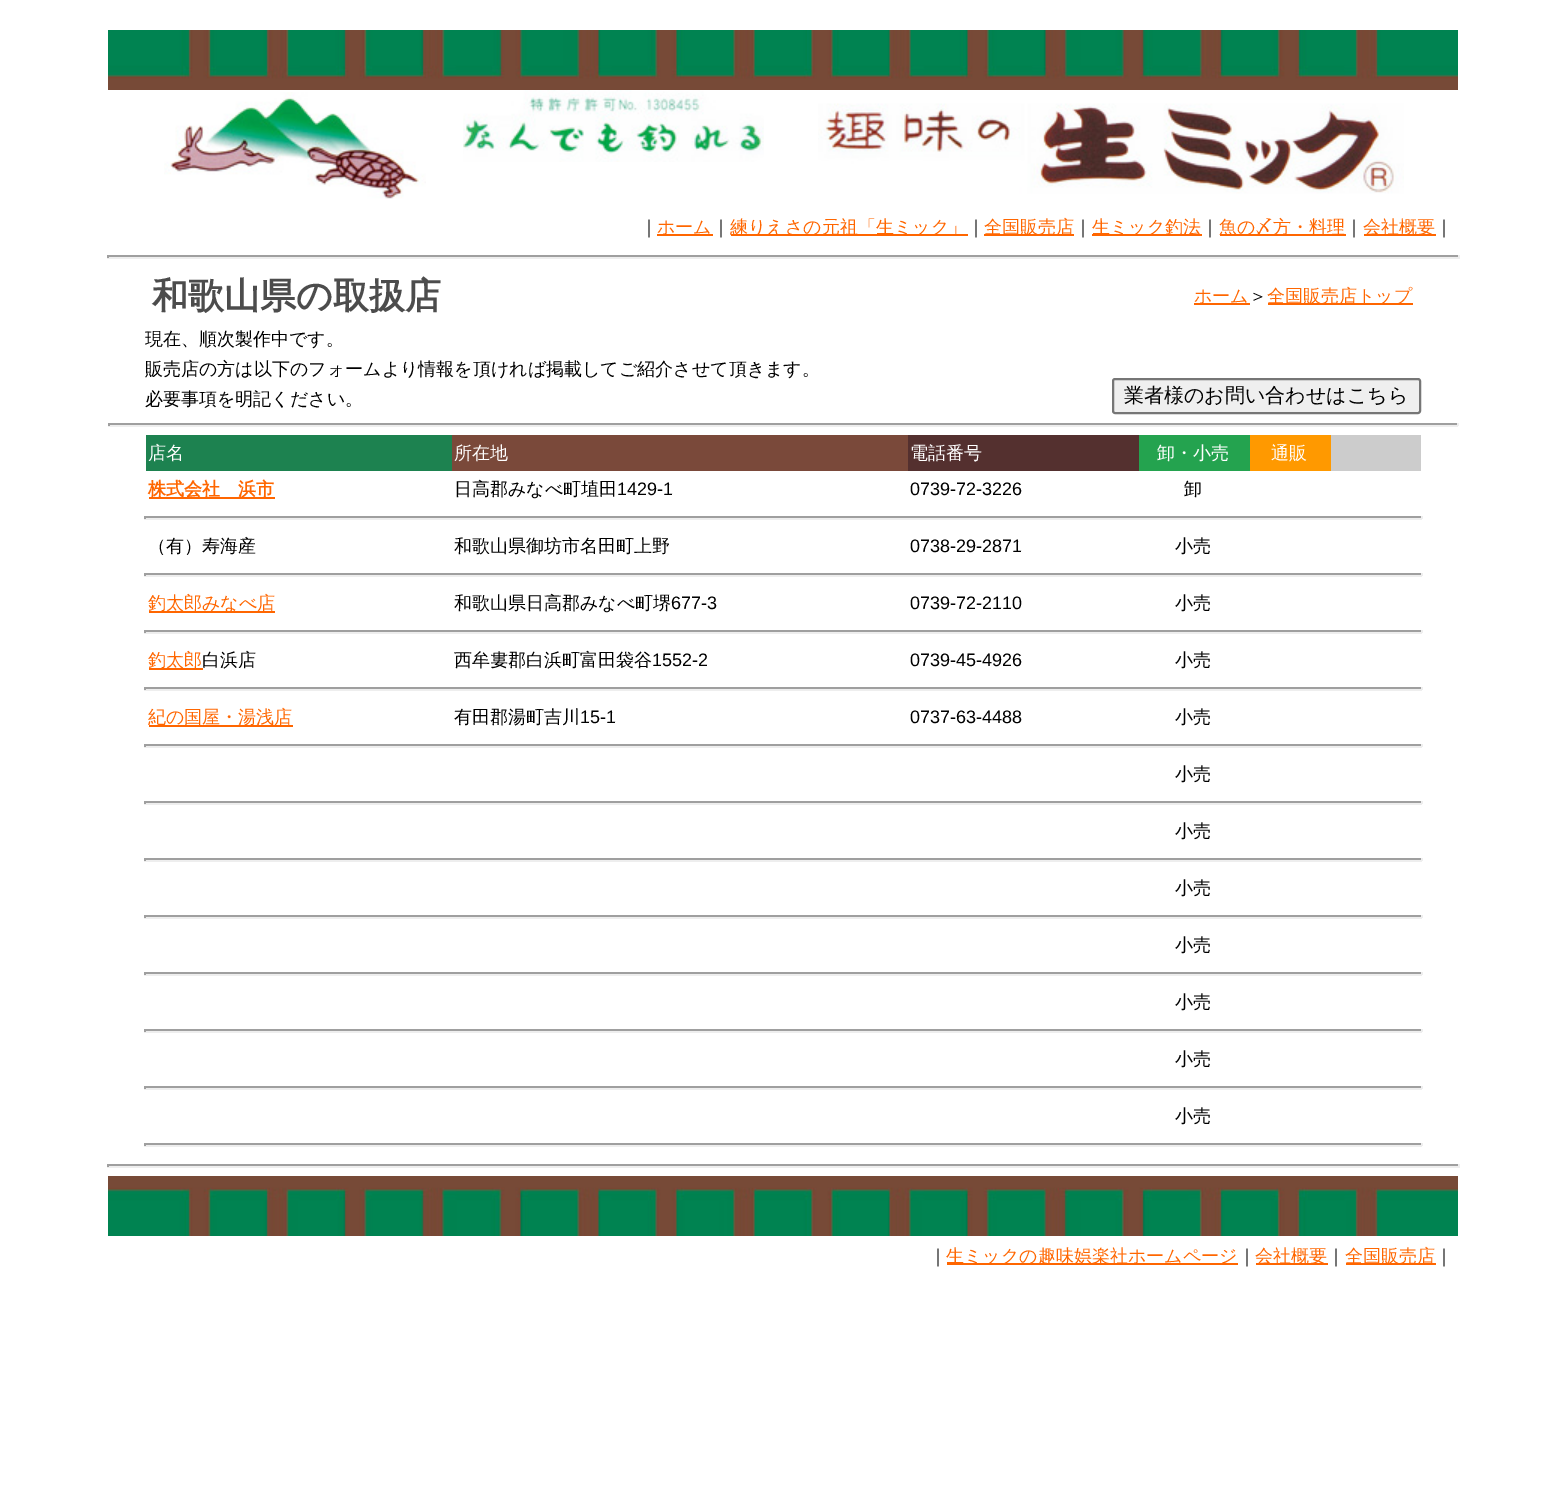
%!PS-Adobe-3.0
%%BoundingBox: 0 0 1564 1488
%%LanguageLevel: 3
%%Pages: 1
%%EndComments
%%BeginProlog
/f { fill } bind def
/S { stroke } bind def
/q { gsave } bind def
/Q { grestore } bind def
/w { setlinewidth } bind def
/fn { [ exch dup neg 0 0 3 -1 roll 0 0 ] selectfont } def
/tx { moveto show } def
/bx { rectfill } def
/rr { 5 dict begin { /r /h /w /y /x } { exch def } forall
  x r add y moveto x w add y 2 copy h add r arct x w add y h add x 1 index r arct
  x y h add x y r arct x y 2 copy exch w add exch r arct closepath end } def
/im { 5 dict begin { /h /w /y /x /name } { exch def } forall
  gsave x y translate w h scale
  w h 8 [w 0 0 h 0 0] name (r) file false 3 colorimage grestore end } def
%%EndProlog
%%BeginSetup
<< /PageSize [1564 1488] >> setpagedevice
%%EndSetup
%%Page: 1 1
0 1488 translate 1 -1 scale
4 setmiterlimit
1 setgray
0 0 1564 1488 bx
(image0.raw) 108 30 1350 60 im
(image1.raw) 164 92 262 107 im
(image2.raw) 463 90 301 72 im
(image3.raw) 818 103 586 91 im
/WenQuanYiZenHei-Medium 18 fn
0 setgray
(｜) 640 233 tx
1 0.4 0 setrgbcolor
657 234 56 2 bx
(ホーム) 657 233 tx
0 setgray
(｜) 712 233 tx
1 0.4 0 setrgbcolor
731 234 237 2 bx
(練りえさの元祖「生ミック」) 730 233 tx
0 setgray
(｜) 967 233 tx
1 0.4 0 setrgbcolor
984 234 90 2 bx
(全国販売店) 984 233 tx
0 setgray
(｜) 1074 233 tx
1 0.4 0 setrgbcolor
1092 234 110 2 bx
(生ミック釣法) 1092 233 tx
0 setgray
(｜) 1201 233 tx
1 0.4 0 setrgbcolor
1220 234 126 2 bx
(魚の〆方・料理) 1219 233 tx
0 setgray
(｜) 1345 233 tx
1 0.4 0 setrgbcolor
1364 234 72 2 bx
(会社概要) 1363 233 tx
0 setgray
(｜) 1435 233 tx
0.624 setgray
107 255 1353 2 bx
0.933 setgray
1458 255 2 3 bx
107 257 1353 2 bx
0.624 setgray
107 255 2 3 bx
/WenQuanYiZenHei-Bold 36 fn
0.298 setgray
(和歌山県の取扱店) 152 308 tx
1 0.4 0 setrgbcolor
1194 303 56 2 bx
/WenQuanYiZenHei-Medium 18 fn
(ホーム) 1194 302 tx
0 setgray
(＞) 1249 302 tx
1 0.4 0 setrgbcolor
1268 303 145 2 bx
(全国販売店トップ) 1267 302 tx
0 setgray
(現在、順次製作中です。) 145 345 tx
(販売店の方は以下のフォームより情報を頂ければ掲載してご紹介させて頂きます。) 145 375 tx
(必要事項を明記ください。) 145 405 tx
0.937 setgray
1113 379 307 34 2 rr q f Q
0.463 setgray
2 w
S
/WenQuanYiZenHei-Medium 20 fn
0 setgray
(業者様のお問い合わせはこちら) 1124 402 tx
0.624 setgray
108 423 1350 2 bx
0.933 setgray
1457 423 2 3 bx
108 425 1350 2 bx
0.624 setgray
108 423 2 3 bx
0.114 0.51 0.314 setrgbcolor
146 435 306 36 bx
/WenQuanYiZenHei-Medium 18 fn
1 setgray
(店名) 148 459 tx
0.478 0.286 0.227 setrgbcolor
452 435 456 36 bx
1 setgray
(所在地) 454 459 tx
0.329 0.188 0.184 setrgbcolor
908 435 231 36 bx
1 setgray
(電話番号) 910 459 tx
0.141 0.639 0.31 setrgbcolor
1139 435 111 36 bx
1 setgray
(卸・小売) 1157 459 tx
1 0.6 0 setrgbcolor
1250 435 81 36 bx
1 setgray
(通販) 1271 459 tx
0.8 setgray
1331 435 90 36 bx
1 0.4 0 setrgbcolor
149 497 126 2 bx
/WenQuanYiZenHei-Bold 18 fn
(株式会社　浜市) 148 495 tx
/WenQuanYiZenHei-Medium 18 fn
0 setgray
(日高郡みなべ町埴田) 454 495 tx
/LiberationSans-Regular 18 fn
(1429-1) 617 495 tx
(0739-72-3226) 910 495 tx
/WenQuanYiZenHei-Medium 18 fn
(卸) 1184 495 tx
0.624 setgray
144 516 1278 2 bx
0.933 setgray
1421 516 2 3 bx
144 518 1278 2 bx
0.624 setgray
144 516 2 3 bx
0 setgray
(（有）寿海産) 148 552 tx
(和歌山県御坊市名田町上野) 454 552 tx
/LiberationSans-Regular 18 fn
(0738-29-2871) 910 552 tx
/WenQuanYiZenHei-Medium 18 fn
(小売) 1175 552 tx
0.624 setgray
144 573 1278 2 bx
0.933 setgray
1421 573 2 3 bx
144 575 1278 2 bx
0.624 setgray
144 573 2 3 bx
1 0.4 0 setrgbcolor
149 611 126 2 bx
(釣太郎みなべ店) 148 609 tx
0 setgray
(和歌山県日高郡みなべ町堺) 454 609 tx
/LiberationSans-Regular 18 fn
(677-3) 671 609 tx
(0739-72-2110) 910 609 tx
/WenQuanYiZenHei-Medium 18 fn
(小売) 1175 609 tx
0.624 setgray
144 630 1278 2 bx
0.933 setgray
1421 630 2 3 bx
144 632 1278 2 bx
0.624 setgray
144 630 2 3 bx
1 0.4 0 setrgbcolor
149 668 54 2 bx
(釣太郎) 148 666 tx
0 setgray
(白浜店) 202 666 tx
(西牟婁郡白浜町富田袋谷) 454 666 tx
/LiberationSans-Regular 18 fn
(1552-2) 652 666 tx
(0739-45-4926) 910 666 tx
/WenQuanYiZenHei-Medium 18 fn
(小売) 1175 666 tx
0.624 setgray
144 687 1278 2 bx
0.933 setgray
1421 687 2 3 bx
144 689 1278 2 bx
0.624 setgray
144 687 2 3 bx
1 0.4 0 setrgbcolor
149 725 144 2 bx
(紀の国屋・湯浅店) 148 723 tx
0 setgray
(有田郡湯町吉川) 454 723 tx
/LiberationSans-Regular 18 fn
(15-1) 580 723 tx
(0737-63-4488) 910 723 tx
/WenQuanYiZenHei-Medium 18 fn
(小売) 1175 723 tx
0.624 setgray
144 744 1278 2 bx
0.933 setgray
1421 744 2 3 bx
144 746 1278 2 bx
0.624 setgray
144 744 2 3 bx
0 setgray
(小売) 1175 780 tx
0.624 setgray
144 801 1278 2 bx
0.933 setgray
1421 801 2 3 bx
144 803 1278 2 bx
0.624 setgray
144 801 2 3 bx
0 setgray
(小売) 1175 837 tx
0.624 setgray
144 858 1278 2 bx
0.933 setgray
1421 858 2 3 bx
144 860 1278 2 bx
0.624 setgray
144 858 2 3 bx
0 setgray
(小売) 1175 894 tx
0.624 setgray
144 915 1278 2 bx
0.933 setgray
1421 915 2 3 bx
144 917 1278 2 bx
0.624 setgray
144 915 2 3 bx
0 setgray
(小売) 1175 951 tx
0.624 setgray
144 972 1278 2 bx
0.933 setgray
1421 972 2 3 bx
144 974 1278 2 bx
0.624 setgray
144 972 2 3 bx
0 setgray
(小売) 1175 1008 tx
0.624 setgray
144 1029 1278 2 bx
0.933 setgray
1421 1029 2 3 bx
144 1031 1278 2 bx
0.624 setgray
144 1029 2 3 bx
0 setgray
(小売) 1175 1065 tx
0.624 setgray
144 1086 1278 2 bx
0.933 setgray
1421 1086 2 3 bx
144 1088 1278 2 bx
0.624 setgray
144 1086 2 3 bx
0 setgray
(小売) 1175 1122 tx
0.624 setgray
144 1143 1278 2 bx
0.933 setgray
1421 1143 2 3 bx
144 1145 1278 2 bx
0.624 setgray
144 1143 2 3 bx
107 1164 1353 2 bx
0.933 setgray
1458 1164 2 3 bx
107 1166 1353 2 bx
0.624 setgray
107 1164 2 3 bx
(image4.raw) 108 1176 1350 60 im
0 setgray
(｜) 929 1262 tx
1 0.4 0 setrgbcolor
947 1263 291 2 bx
(生ミックの趣味娯楽社ホームページ) 946 1262 tx
0 setgray
(｜) 1238 1262 tx
1 0.4 0 setrgbcolor
1256 1263 72 2 bx
(会社概要) 1255 1262 tx
0 setgray
(｜) 1327 1262 tx
1 0.4 0 setrgbcolor
1346 1263 90 2 bx
(全国販売店) 1345 1262 tx
0 setgray
(｜) 1435 1262 tx
showpage
%%EOF
